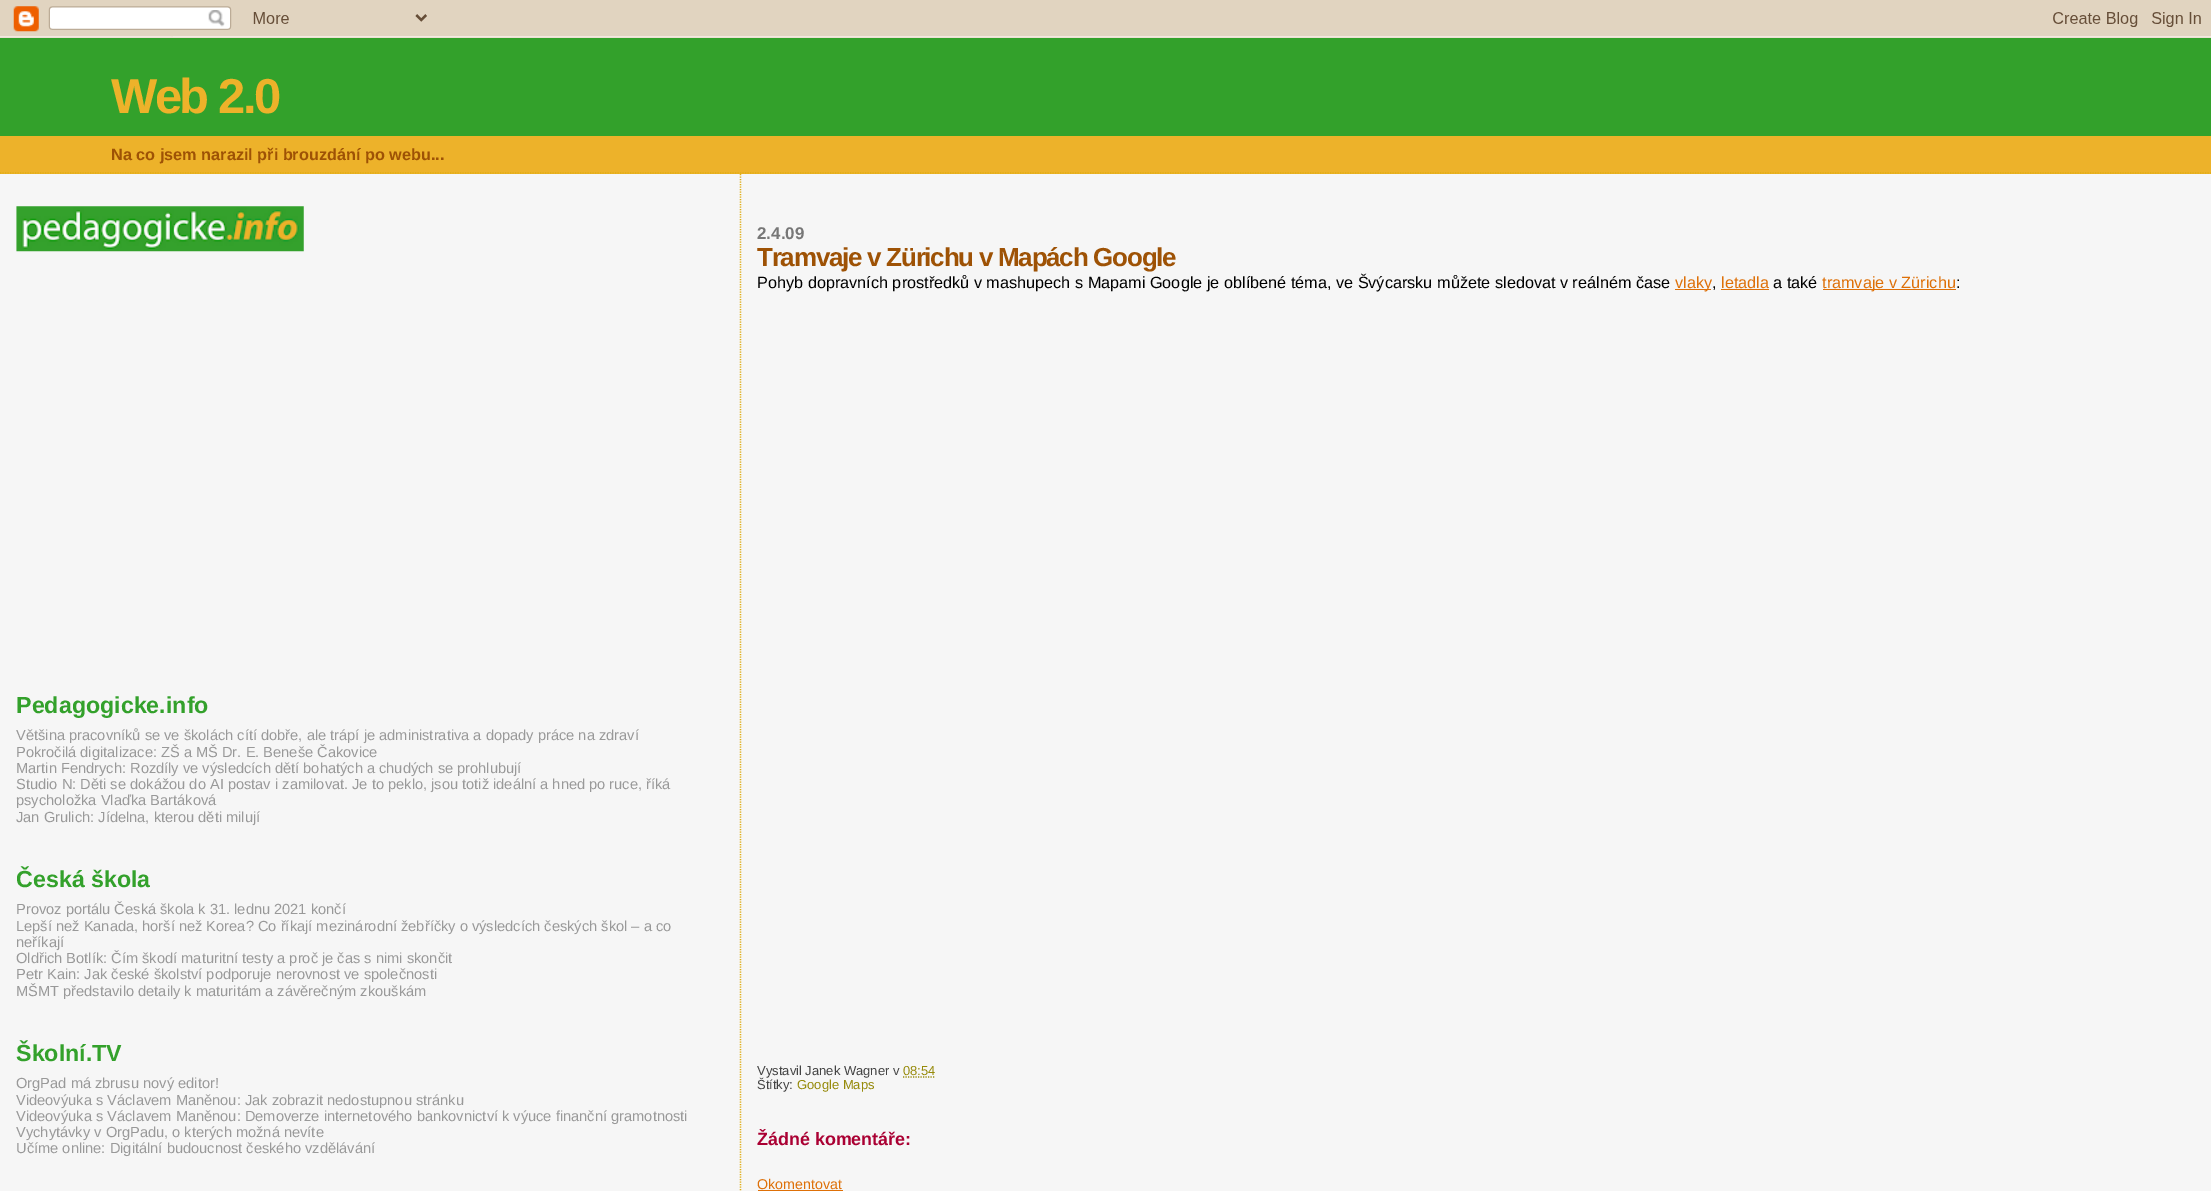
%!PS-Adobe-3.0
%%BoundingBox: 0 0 2211 1191
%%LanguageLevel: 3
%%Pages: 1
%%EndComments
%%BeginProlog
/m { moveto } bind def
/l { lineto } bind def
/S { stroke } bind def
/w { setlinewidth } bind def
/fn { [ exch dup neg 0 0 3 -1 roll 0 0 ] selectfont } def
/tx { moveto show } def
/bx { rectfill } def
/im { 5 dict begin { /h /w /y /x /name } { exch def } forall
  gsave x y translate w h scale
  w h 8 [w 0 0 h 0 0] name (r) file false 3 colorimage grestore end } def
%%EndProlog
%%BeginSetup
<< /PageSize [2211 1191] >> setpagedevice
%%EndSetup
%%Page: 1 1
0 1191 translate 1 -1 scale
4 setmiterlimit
0.965 setgray
0 0 2211 1191 bx
(image0.raw) 0 0 2211 38 im
0.929 0.698 0.165 setrgbcolor
0 136 2211 38 bx
0.878 0.678 0.071 setrgbcolor
1.2 w
[1.25 1.25] 0 setdash
0 173 m 2211 173 l S
0.2 0.631 0.169 setrgbcolor
0 38 2211 98 bx
/LiberationSans-Bold 49 fn
0.929 0.698 0.165 setrgbcolor
111 113 m -2.5 0 (Web 2.0) ashow
/LiberationSans-Bold 16.25 fn
0.62 0.322 0.02 setrgbcolor
(Na co jsem narazil při brouzdání po webu...) 111 160 tx
(image1.raw) 16 206 288 46 im
/LiberationSans-Bold 23.25 fn
0.2 0.631 0.169 setrgbcolor
(Pedagogicke.info) 16 713 tx
/LiberationSans-Regular 14.65 fn
0.6 setgray
(Většina pracovníků se ve školách cítí dobře, ale trápí je administrativa a dopady práce na zdraví) 16 740 tx
(Pokročilá digitalizace: ZŠ a MŠ Dr. E. Beneše Čakovice) 16 757 tx
(Martin Fendrych: Rozdíly ve výsledcích dětí bohatých a chudých se prohlubují) 16 773 tx
(Studio N: Děti se dokážou do AI postav i zamilovat. Je to peklo, jsou totiž ideální a hned po ruce, říká) 16 789 tx
(psycholožka Vlaďka Bartáková) 16 805 tx
(Jan Grulich: Jídelna, kterou děti milují) 16 822 tx
/LiberationSans-Bold 23.25 fn
0.2 0.631 0.169 setrgbcolor
(Česká škola) 16 887 tx
/LiberationSans-Regular 14.65 fn
0.6 setgray
(Provoz portálu Česká škola k 31. lednu 2021 končí) 16 914 tx
(Lepší než Kanada, horší než Korea? Co říkají mezinárodní žebříčky o výsledcích českých škol – a co) 16 931 tx
(neříkají) 16 947 tx
(Oldřich Botlík: Čím škodí maturitní testy a proč je čas s nimi skončit) 16 963 tx
(Petr Kain: Jak české školství podporuje nerovnost ve společnosti) 16 979 tx
(MŠMT představilo detaily k maturitám a závěrečným zkouškám) 16 996 tx
/LiberationSans-Bold 23.25 fn
0.2 0.631 0.169 setrgbcolor
(Školní.TV) 16 1061 tx
/LiberationSans-Regular 14.65 fn
0.6 setgray
(OrgPad má zbrusu nový editor!) 16 1088 tx
(Videovýuka s Václavem Maněnou: Jak zobrazit nedostupnou stránku) 16 1105 tx
(Videovýuka s Václavem Maněnou: Demoverze internetového bankovnictví k výuce finanční gramotnosti) 16 1121 tx
(Vychytávky v OrgPadu, o kterých možná nevíte) 16 1137 tx
(Učíme online: Digitální budoucnost českého vzdělávání) 16 1153 tx
0.878 0.678 0.071 setrgbcolor
740.5 174 m 740.5 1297.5 l S
/LiberationSans-Bold 17 fn
0.467 setgray
(2.4.09) 757 239 tx
/LiberationSans-Bold 26 fn
0.62 0.322 0.02 setrgbcolor
757 266 m -1.25 0 (Tramvaje v Zürichu v Mapách Google) ashow
/LiberationSans-Regular 16.25 fn
0 setgray
(Pohyb dopravních prostředků v mashupech s Mapami Google je oblíbené téma, ve Švýcarsku můžete sledovat v reálném čase) 757 288 tx
0.871 0.439 0.031 setrgbcolor
1675 289 36 1 bx
(vlaky) 1675 288 tx
(letadla) 1721 288 tx
1721 289 48 1 bx
0 setgray
(a také) 1773 288 tx
0.871 0.439 0.031 setrgbcolor
1823 289 133 1 bx
(tramvaje v Zürichu) 1822 288 tx
0 setgray
(:) 1956 288 tx
(,) 1712 288 tx
/LiberationSans-Regular 13 fn
0.267 setgray
(Vystavil Janek Wagner v) 757 1075 tx
0.588 0.541 0.039 setrgbcolor
(08:54) 903 1075 tx
903 1077 m 935.5 1077 l S
0.267 setgray
(Štítky:) 757 1089 tx
0.588 0.541 0.039 setrgbcolor
(Google Maps) 797 1089 tx
/LiberationSans-Bold 17.9 fn
0.667 0 0.2 setrgbcolor
(Žádné komentáře:) 757 1145 tx
/LiberationSans-Regular 14.25 fn
0.871 0.439 0.031 setrgbcolor
(Okomentovat) 757 1189 tx
758 1190 85 1 bx
showpage
%%EOF
